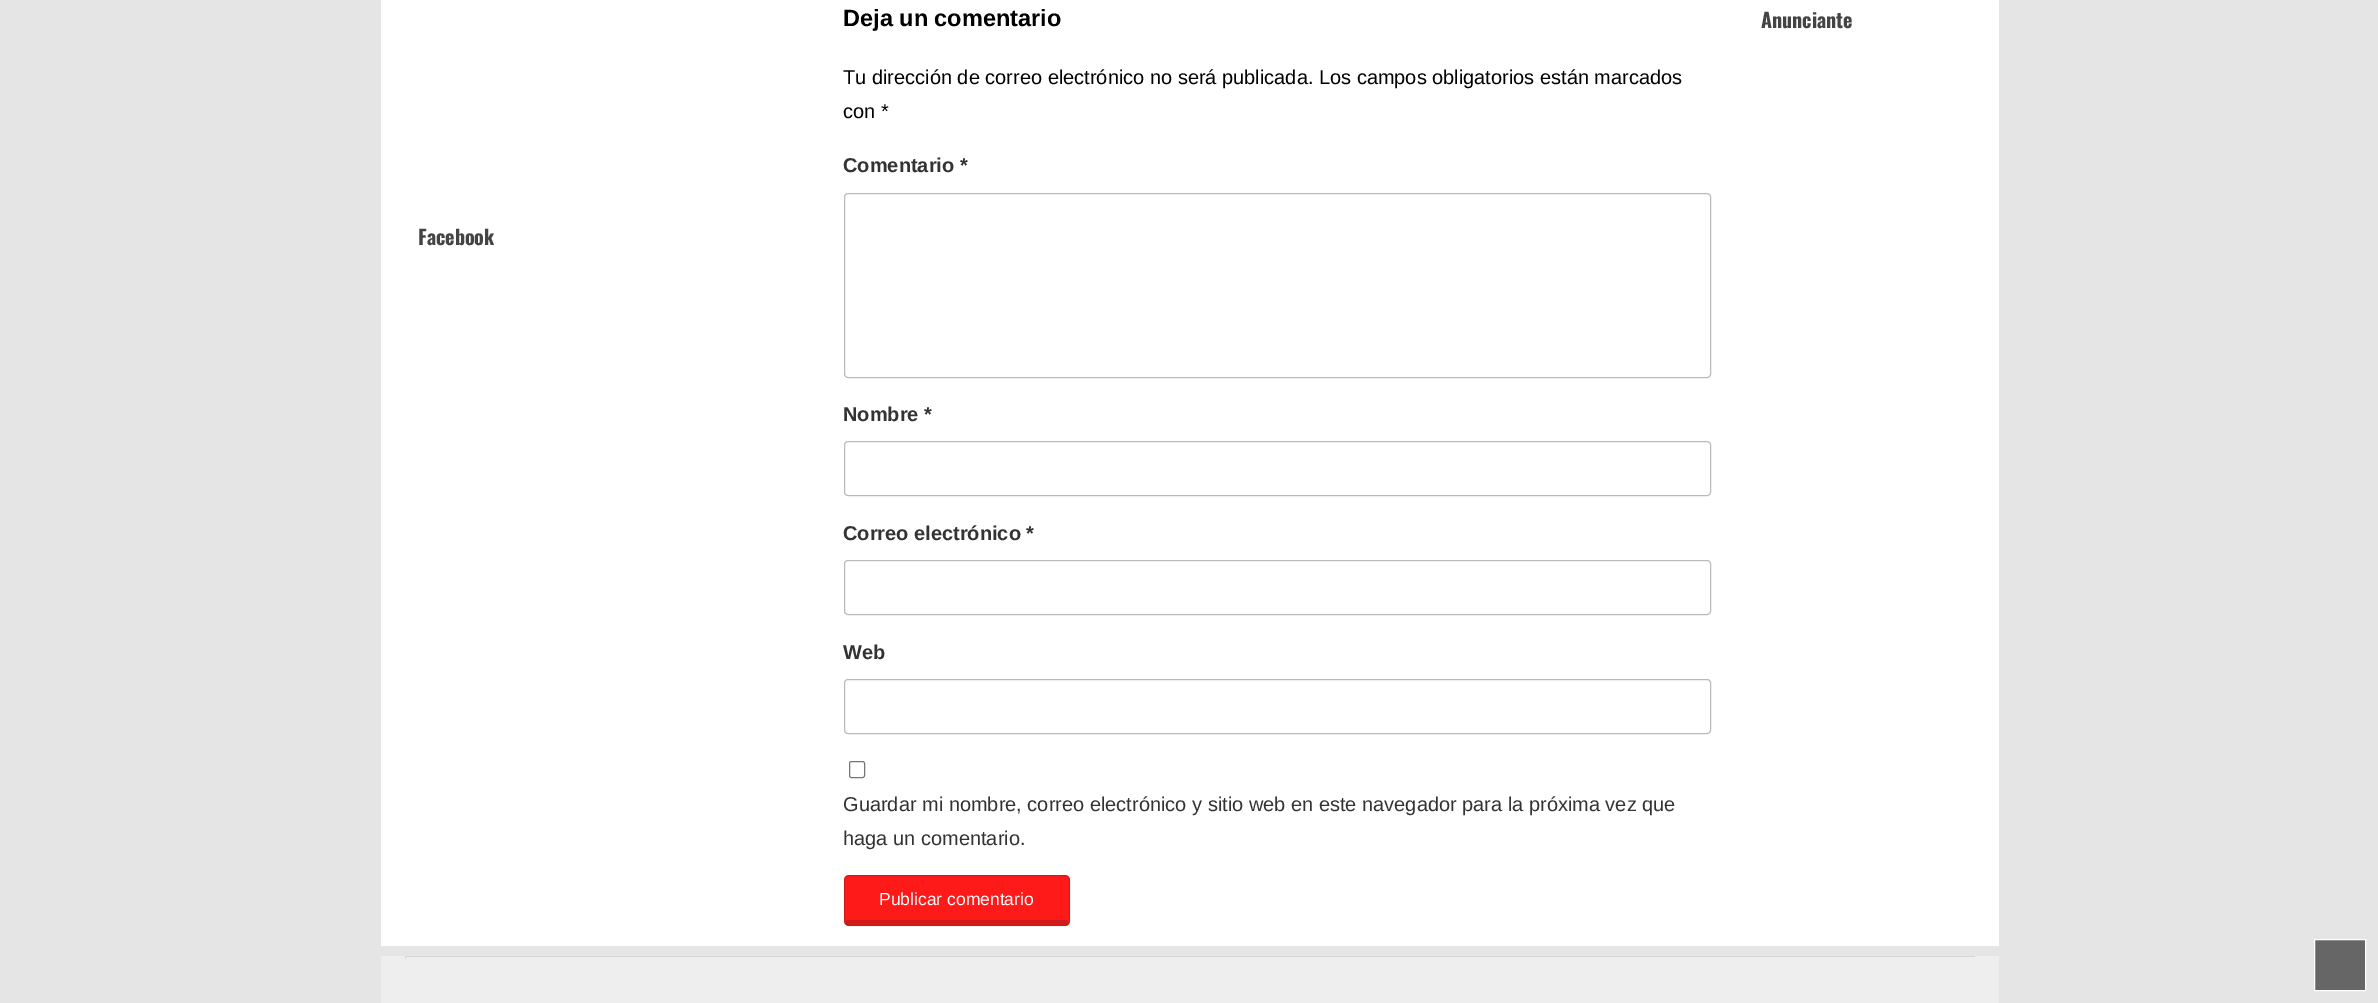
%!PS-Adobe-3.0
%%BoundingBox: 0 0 2378 1003
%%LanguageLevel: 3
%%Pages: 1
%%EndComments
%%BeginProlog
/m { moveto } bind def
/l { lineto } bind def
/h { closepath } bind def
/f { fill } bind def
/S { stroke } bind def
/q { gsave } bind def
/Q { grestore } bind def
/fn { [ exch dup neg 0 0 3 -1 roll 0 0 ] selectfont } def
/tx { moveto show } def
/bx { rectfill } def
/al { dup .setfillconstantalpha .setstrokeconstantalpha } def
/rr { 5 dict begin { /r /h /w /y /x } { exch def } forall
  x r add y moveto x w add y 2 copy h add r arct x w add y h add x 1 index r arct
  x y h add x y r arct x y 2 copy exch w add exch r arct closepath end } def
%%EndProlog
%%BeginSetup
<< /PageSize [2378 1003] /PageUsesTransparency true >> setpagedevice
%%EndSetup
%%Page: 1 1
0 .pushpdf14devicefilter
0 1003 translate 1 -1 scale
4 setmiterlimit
0.898 setgray
0 0 2378 1003 bx
1 setgray
381 0 1618 946 bx
/LiberationSans-Bold 23.5 fn
0 setgray
(Deja un comentario) 843 26 tx
/LiberationSans-Regular 20 fn
(Tu dirección de correo electrónico no será publicada. Los campos obligatorios están marcados) 843 84 tx
(con *) 843 118 tx
/LiberationSans-Bold 20 fn
0.2 setgray
(Comentario *) 843 172 tx
0.733 setgray
844.5 193.5 866 184 3.5 rr S
0.2 setgray
(Nombre *) 843 421 tx
0.733 setgray
844.5 441.5 866 54 3.5 rr S
0.2 setgray
(Correo electrónico *) 843 540 tx
0.733 setgray
844.5 560.5 866 54 3.5 rr S
0.2 setgray
(Web) 843 659 tx
0.733 setgray
844.5 679.5 866 54 3.5 rr S
0.463 setgray
849.5 761.5 15 16 2 rr S
/LiberationSans-Regular 20 fn
0.2 setgray
(Guardar mi nombre, correo electrónico y sitio web en este navegador para la próxima vez que) 843 811 tx
(haga un comentario.) 843 845 tx
1 0.102 0.102 setrgbcolor
844 875 226 51 5 rr f
0.2 al
0.102 setgray
844.5 875.5 225 50 4.5 rr S
846 920 222 5 bx
/LiberationSans-Regular 17.5 fn
1 al
1 setgray
(Publicar comentario) 879 905 tx
/Oswald-Bold 20 fn
0.267 setgray
(Anunciante) 1761 28 tx
(Facebook) 418 245 tx
0.933 setgray
381 956 1618 47 bx
0.839 setgray
405 956 1571 1 bx
0.933 setgray
1975 956 1 3 bx
0.839 setgray
405 956 1 3 bx
0.4 setgray
2314.5 939.5 m 2365.5 939.5 l 2365.5 990.5 l 2314.5 990.5 l h q f Q
1 setgray
S
.poppdf14devicefilter showpage
%%EOF
